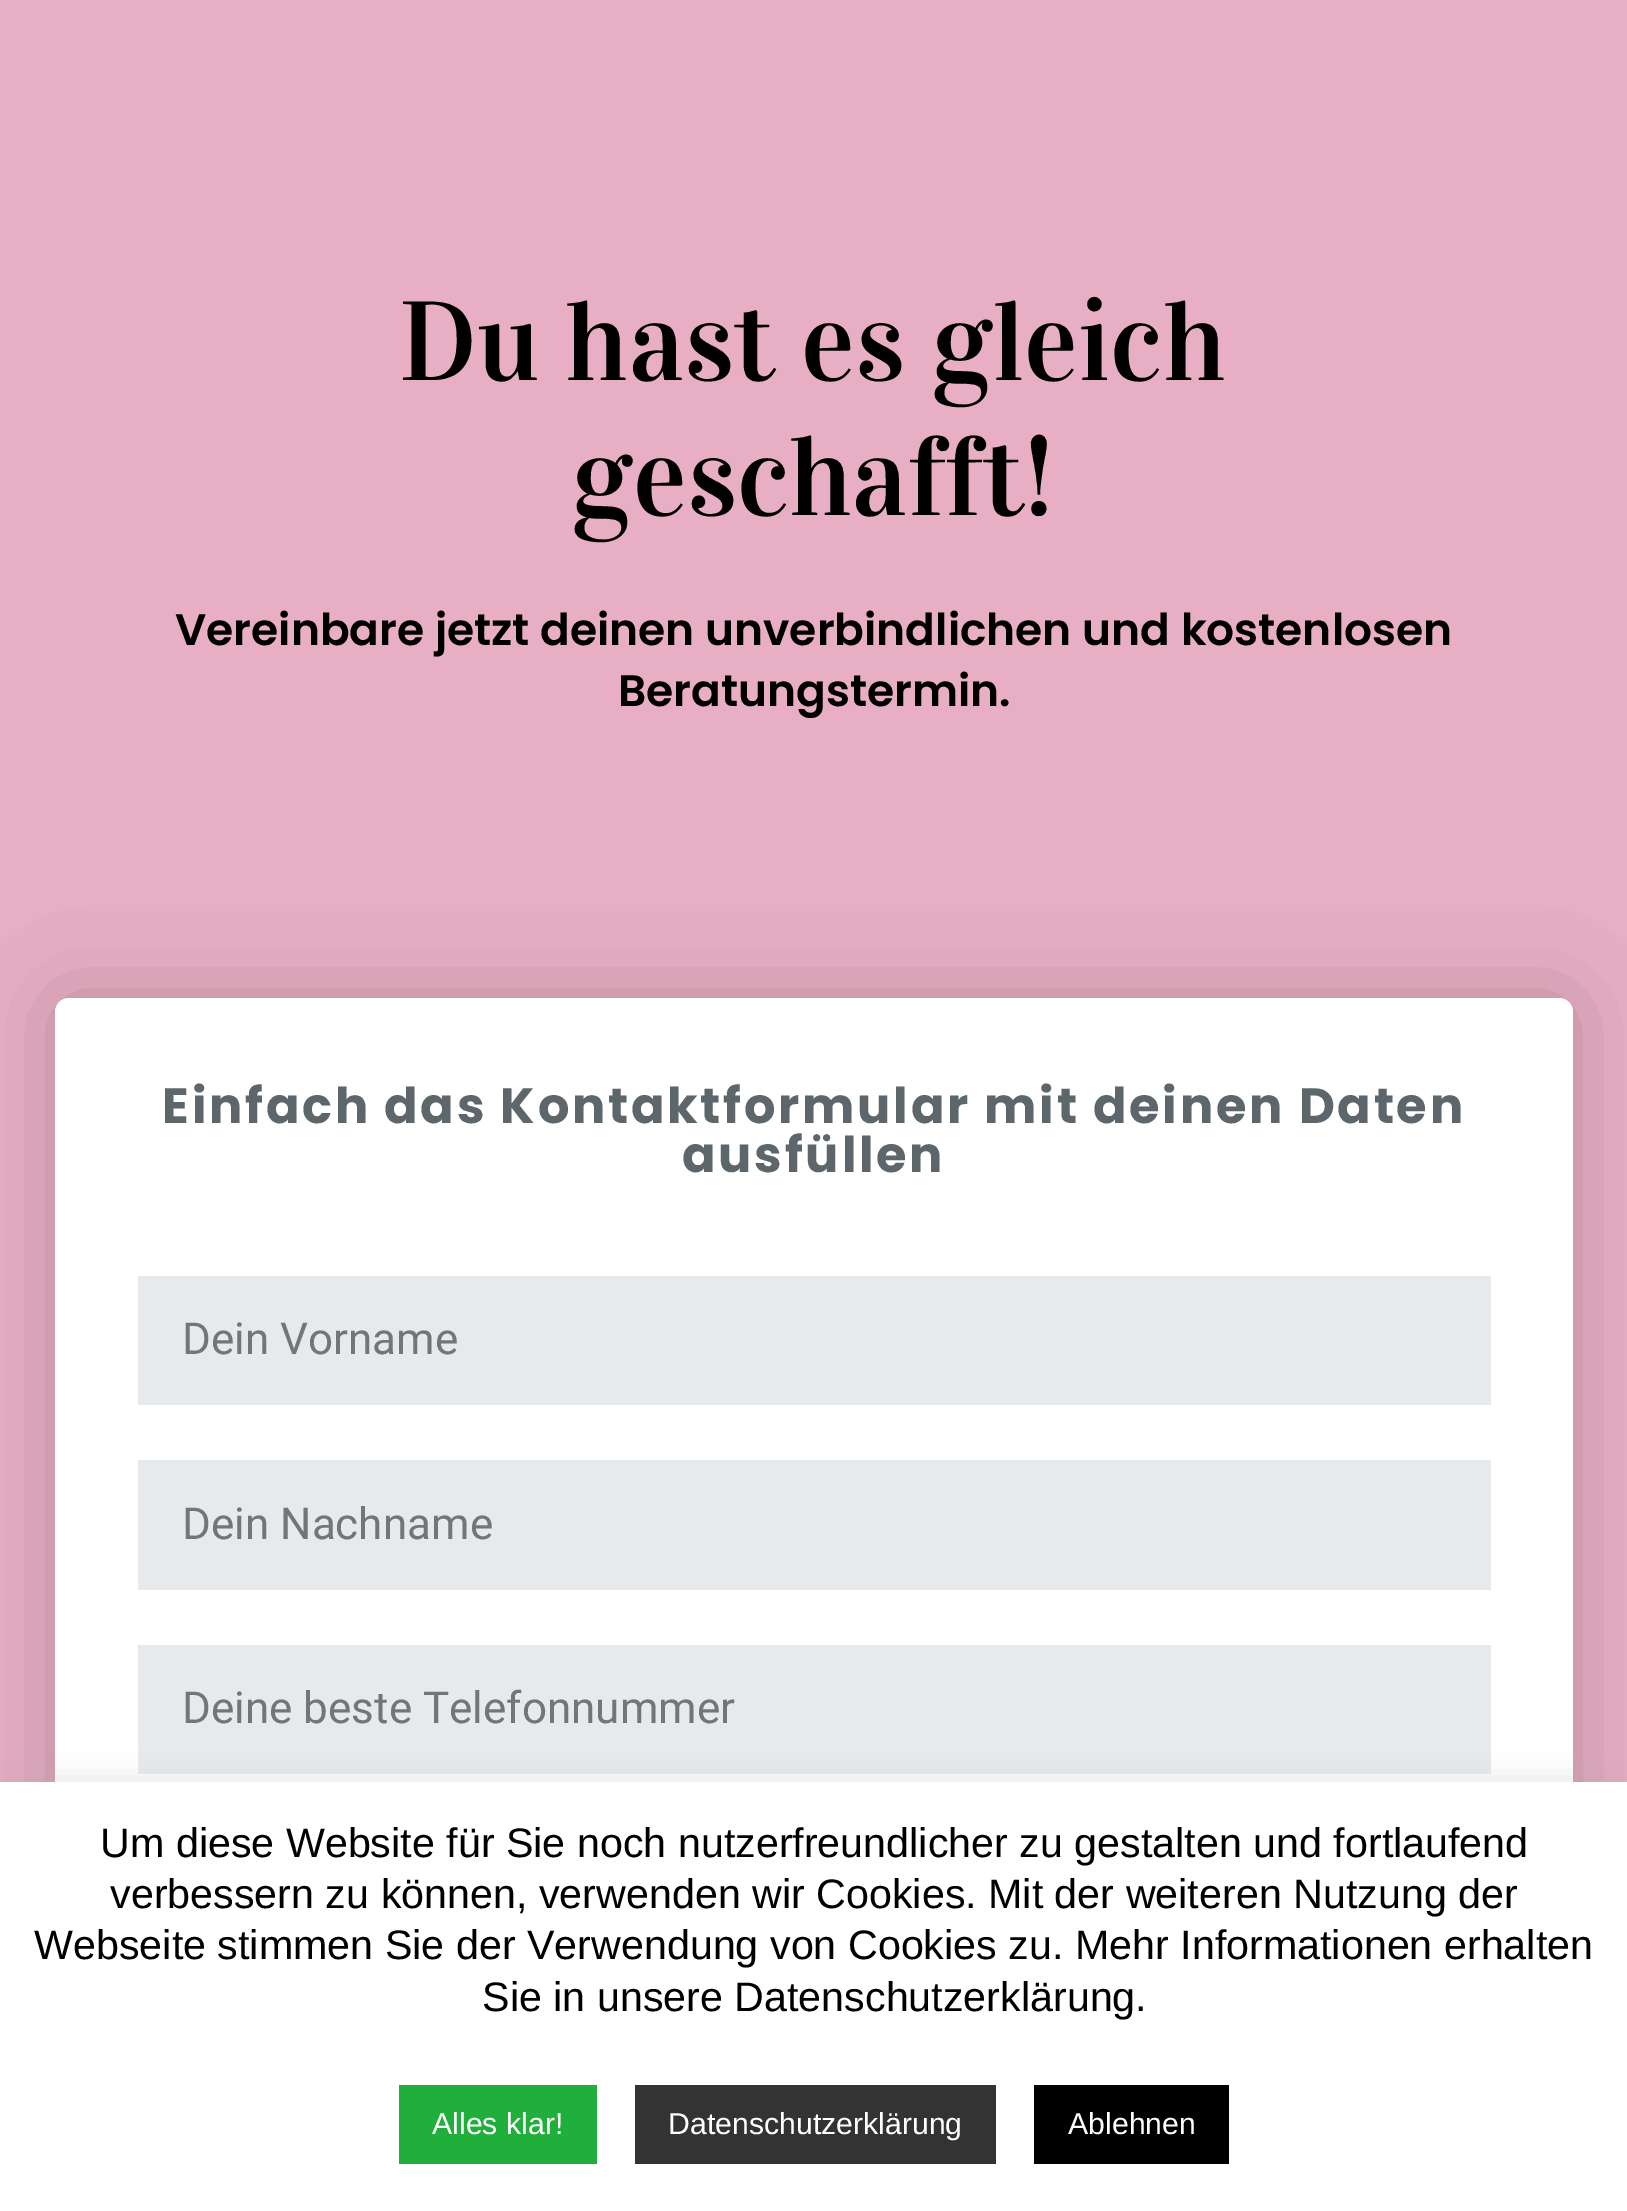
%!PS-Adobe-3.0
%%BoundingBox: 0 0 1627 2211
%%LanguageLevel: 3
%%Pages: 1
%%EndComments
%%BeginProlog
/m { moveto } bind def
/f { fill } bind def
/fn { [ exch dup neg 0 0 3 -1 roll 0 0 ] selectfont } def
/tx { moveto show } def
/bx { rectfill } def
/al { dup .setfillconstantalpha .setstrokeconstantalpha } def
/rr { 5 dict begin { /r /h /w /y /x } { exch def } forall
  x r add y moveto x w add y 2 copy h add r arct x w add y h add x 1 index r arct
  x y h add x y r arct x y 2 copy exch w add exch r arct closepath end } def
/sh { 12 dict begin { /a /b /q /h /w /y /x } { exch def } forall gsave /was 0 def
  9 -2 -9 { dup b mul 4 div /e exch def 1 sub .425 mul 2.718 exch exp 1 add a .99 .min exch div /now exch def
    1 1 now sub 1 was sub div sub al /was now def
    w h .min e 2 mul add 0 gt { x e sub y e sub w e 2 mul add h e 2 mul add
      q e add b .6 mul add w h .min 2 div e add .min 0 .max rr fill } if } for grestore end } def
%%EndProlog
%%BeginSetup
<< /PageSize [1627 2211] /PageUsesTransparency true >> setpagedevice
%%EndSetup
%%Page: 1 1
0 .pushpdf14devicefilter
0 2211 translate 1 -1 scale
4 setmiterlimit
0.91 0.682 0.769 setrgbcolor
0 0 1627 2211 bx
/Vidaloka-Regular 112.75 fn
0 setgray
(Du hast es gleich) 399 380 tx
(geschafft!) 571 515 tx
/Poppins-SemiBold 44 fn
(Vereinbare jetzt deinen unverbindlichen und kostenlosen) 175 645 tx
(Beratungstermin.) 618 706 tx
55 998 1518 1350 14 41 0.2 sh
1 setgray
55 998 1518 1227 14 rr f
/Poppins-Bold 49.5 fn
0.365 0.4 0.42 setrgbcolor
162 1123 m 2.75 0 (Einfach das Kontaktformular mit deinen Daten) ashow
682 1172 m 2.75 0 (ausfüllen) ashow
0.906 0.918 0.925 setrgbcolor
138 1276 1353 129 bx
/Roboto-Regular 44 fn
0.455 0.459 0.459 setrgbcolor
(Dein Vorname) 182 1354 tx
0.906 0.918 0.925 setrgbcolor
138 1460 1353 130 bx
0.455 0.459 0.459 setrgbcolor
(Dein Nachname) 182 1539 tx
0.906 0.918 0.925 setrgbcolor
138 1645 1353 129 bx
0.455 0.459 0.459 setrgbcolor
(Deine beste Telefonnummer) 182 1723 tx
0.675 0.671 0.671 setrgbcolor
0 1779 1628 429 0 14 0.3 sh
1 setgray
0 1782 1627 429 bx
/LiberationSans-Regular 41.25 fn
0 setgray
(Um diese Website für Sie noch nutzerfreundlicher zu gestalten und fortlaufend) 100 1857 tx
(verbessern zu können, verwenden wir Cookies. Mit der weiteren Nutzung der) 110 1908 tx
(Webseite stimmen Sie der Verwendung von Cookies zu. Mehr Informationen erhalten) 34 1959 tx
(Sie in unsere Datenschutzerklärung.) 482 2011 tx
0.129 0.686 0.231 setrgbcolor
399 2085 198 79 bx
/LiberationSans-Regular 30.25 fn
1 setgray
(Alles klar!) 432 2134 tx
0.2 setgray
635 2085 361 79 bx
1 setgray
(Datenschutzerklärung) 668 2134 tx
0 setgray
1034 2085 195 79 bx
1 setgray
(Ablehnen) 1068 2134 tx
.poppdf14devicefilter showpage
%%EOF
